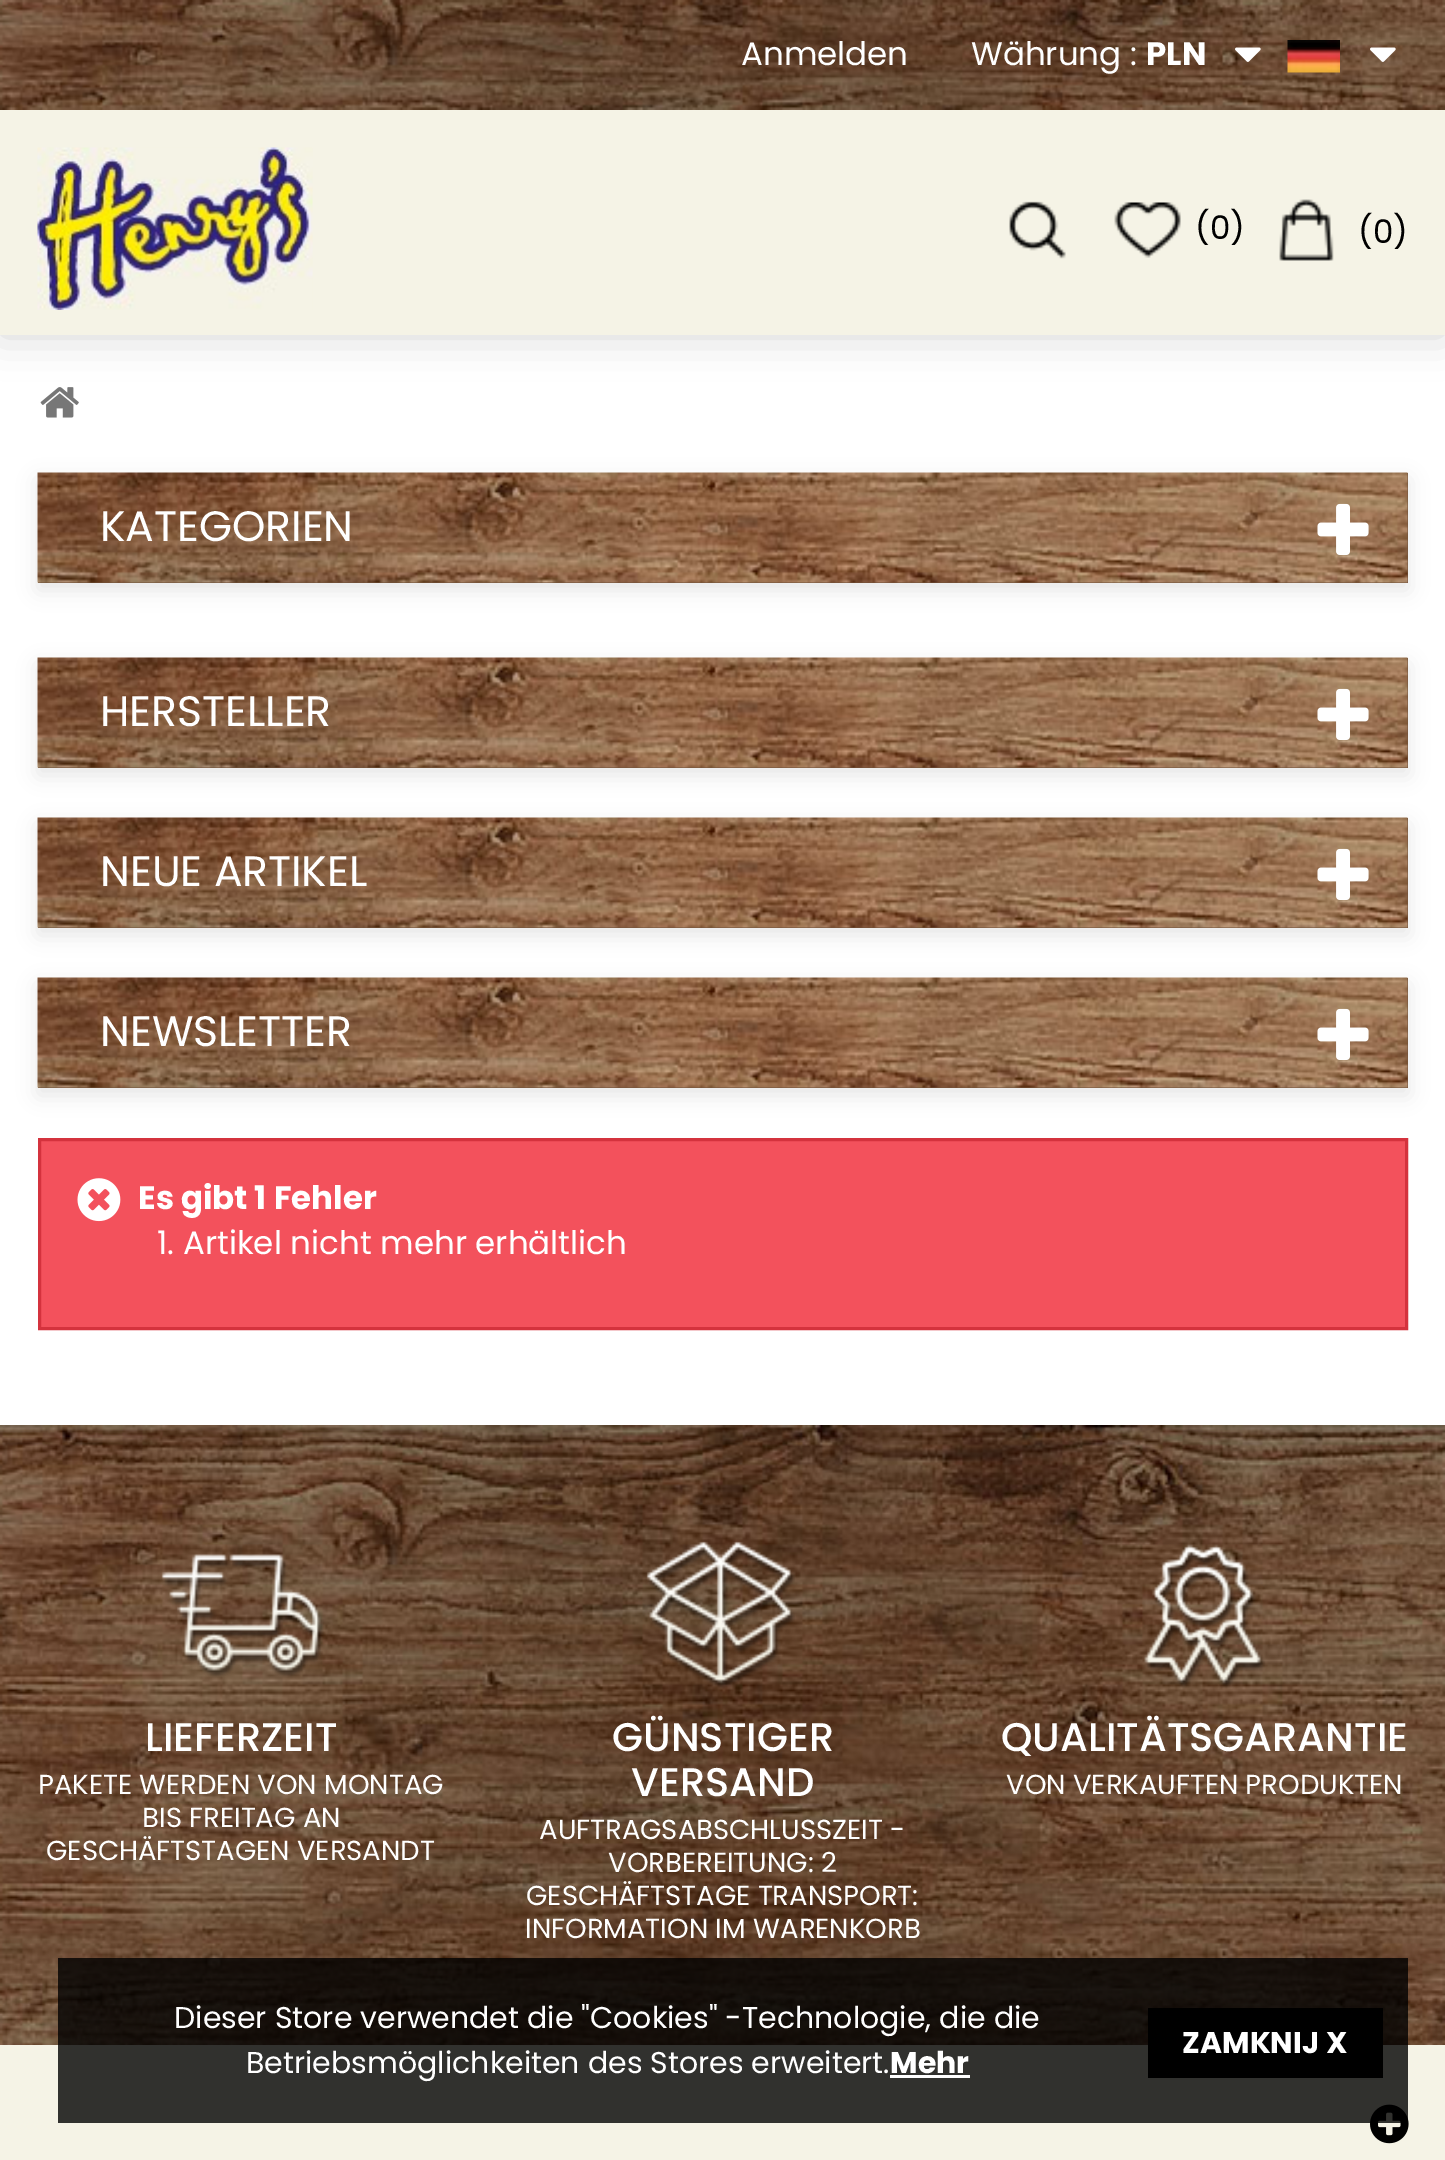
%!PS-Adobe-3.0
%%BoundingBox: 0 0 1445 2160
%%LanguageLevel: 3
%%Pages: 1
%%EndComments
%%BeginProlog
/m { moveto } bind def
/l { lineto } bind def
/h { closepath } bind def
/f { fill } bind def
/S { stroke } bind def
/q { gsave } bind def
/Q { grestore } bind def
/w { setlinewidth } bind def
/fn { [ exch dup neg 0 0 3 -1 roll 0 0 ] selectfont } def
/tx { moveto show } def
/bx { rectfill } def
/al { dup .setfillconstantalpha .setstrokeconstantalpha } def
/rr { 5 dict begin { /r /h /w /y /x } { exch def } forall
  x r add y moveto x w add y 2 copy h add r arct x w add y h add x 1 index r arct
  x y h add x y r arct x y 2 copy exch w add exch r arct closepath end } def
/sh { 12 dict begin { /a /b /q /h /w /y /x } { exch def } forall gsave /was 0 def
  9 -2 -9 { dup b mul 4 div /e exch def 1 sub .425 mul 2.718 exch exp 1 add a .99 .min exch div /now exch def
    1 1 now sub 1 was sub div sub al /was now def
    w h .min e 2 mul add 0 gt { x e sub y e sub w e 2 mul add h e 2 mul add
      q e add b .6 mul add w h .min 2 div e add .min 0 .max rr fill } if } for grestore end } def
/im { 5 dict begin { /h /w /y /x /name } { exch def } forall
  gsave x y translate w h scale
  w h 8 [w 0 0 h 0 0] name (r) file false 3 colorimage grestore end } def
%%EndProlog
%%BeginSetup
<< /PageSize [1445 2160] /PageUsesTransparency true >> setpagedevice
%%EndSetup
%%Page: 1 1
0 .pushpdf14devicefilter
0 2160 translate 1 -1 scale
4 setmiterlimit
0.961 0.953 0.902 setrgbcolor
0 0 1445 2160 bx
(image12.raw) 0 1425 1445 620 im
0 setgray
0 335 1445 1090 0 21 0.17 sh
1 setgray
0 335 1445 1090 bx
(image8.raw) 40 387 39 31 im
0 setgray
0 0 1445 335 0 21 0.17 sh
0.961 0.953 0.902 setrgbcolor
0 110 1445 225 bx
(image0.raw) 0 0 1445 110 im
/Poppins-Regular 32.5 fn
1 setgray
(Anmelden) 741 65 tx
(Währung :) 971 65 tx
/Poppins-Bold 32.5 fn
(PLN) 1146 65 tx
(image1.raw) 1235 47 26 15 im
(image2.raw) 1287 40 53 33 im
(image3.raw) 1370 47 26 15 im
(image4.raw) 37 147 276 163 im
(image5.raw) 1009 201 57 58 im
(image6.raw) 1114 202 67 56 im
/Poppins-Regular 32.5 fn
0 setgray
(\(0\)) 1195 239 tx
(image7.raw) 1279 199 55 62 im
(\(0\)) 1358 243 tx
38 480 1370 110 0 10 0.1 sh
0.443 0.318 0.224 setrgbcolor
38 473 1370 110 bx
(image9.raw) 37 472 1371 111 im
/Poppins-Regular 42.5 fn
1 setgray
(KATEGORIEN) 100 541 tx
(image10.raw) 1317 503 52 52 im
0 setgray
38 665 1370 110 0 10 0.1 sh
0.443 0.318 0.224 setrgbcolor
38 658 1370 110 bx
(image9.raw) 37 657 1371 111 im
1 setgray
(HERSTELLER) 100 726 tx
(image10.raw) 1317 688 52 52 im
0 setgray
38 825 1370 110 0 10 0.1 sh
0.443 0.318 0.224 setrgbcolor
38 818 1370 110 bx
(image9.raw) 37 817 1371 111 im
1 setgray
(NEUE ARTIKEL) 100 886 tx
(image10.raw) 1317 848 52 52 im
0 setgray
38 985 1370 110 0 10 0.1 sh
0.443 0.318 0.224 setrgbcolor
38 978 1370 110 bx
(image9.raw) 37 977 1371 111 im
1 setgray
(NEWSLETTER) 100 1046 tx
(image10.raw) 1317 1008 52 52 im
0.953 0.318 0.361 setrgbcolor
39.5 1139.5 m 1406.5 1139.5 l 1406.5 1328.5 l 39.5 1328.5 l h q f Q
0.831 0.196 0.239 setrgbcolor
3 w
S
(image11.raw) 77 1178 44 44 im
/Poppins-Bold 32.5 fn
1 setgray
(Es gibt 1 Fehler) 138 1209 tx
/Poppins-Regular 32.5 fn
(1. Artikel nicht mehr erhältlich) 157 1254 tx
(image13.raw) 161 1554 163 124 im
/Poppins-Medium 40 fn
(LIEFERZEIT) 145 1751 tx
/Poppins-Regular 27.5 fn
(PAKETE WERDEN VON MONTAG) 38 1794 tx
(BIS FREITAG AN) 142 1827 tx
(GESCHÄFTSTAGEN VERSANDT) 46 1860 tx
(image14.raw) 646 1541 149 148 im
/Poppins-Medium 40 fn
(GÜNSTIGER) 612 1751 tx
(VERSAND) 631 1796 tx
/Poppins-Regular 27.5 fn
(AUFTRAGSABSCHLUSSZEIT -) 539 1839 tx
(VORBEREITUNG: 2) 608 1872 tx
(GESCHÄFTSTAGE TRANSPORT:) 526 1905 tx
(INFORMATION IM WARENKORB) 525 1938 tx
(image15.raw) 1144 1544 121 145 im
/Poppins-Medium 40 fn
(QUALITÄTSGARANTIE) 1001 1751 tx
/Poppins-Regular 27.5 fn
(VON VERKAUFTEN PRODUKTEN) 1006 1794 tx
(image16.raw) 1370 2104 39 40 im
0.8 al
0 setgray
58 1958 1350 165 bx
/Poppins-Regular 30 fn
1 al
1 setgray
(Dieser Store verwendet die "Cookies" -Technologie, die die) 174 2028 tx
(Betriebsmöglichkeiten des Stores erweitert.) 246 2073 tx
/Poppins-Bold 30 fn
(Mehr) 890 2073 tx
890 2075 80 3 bx
0 setgray
1148 2008 235 70 bx
1 setgray
(ZAMKNIJ X) 1182 2053 tx
.poppdf14devicefilter showpage
%%EOF
